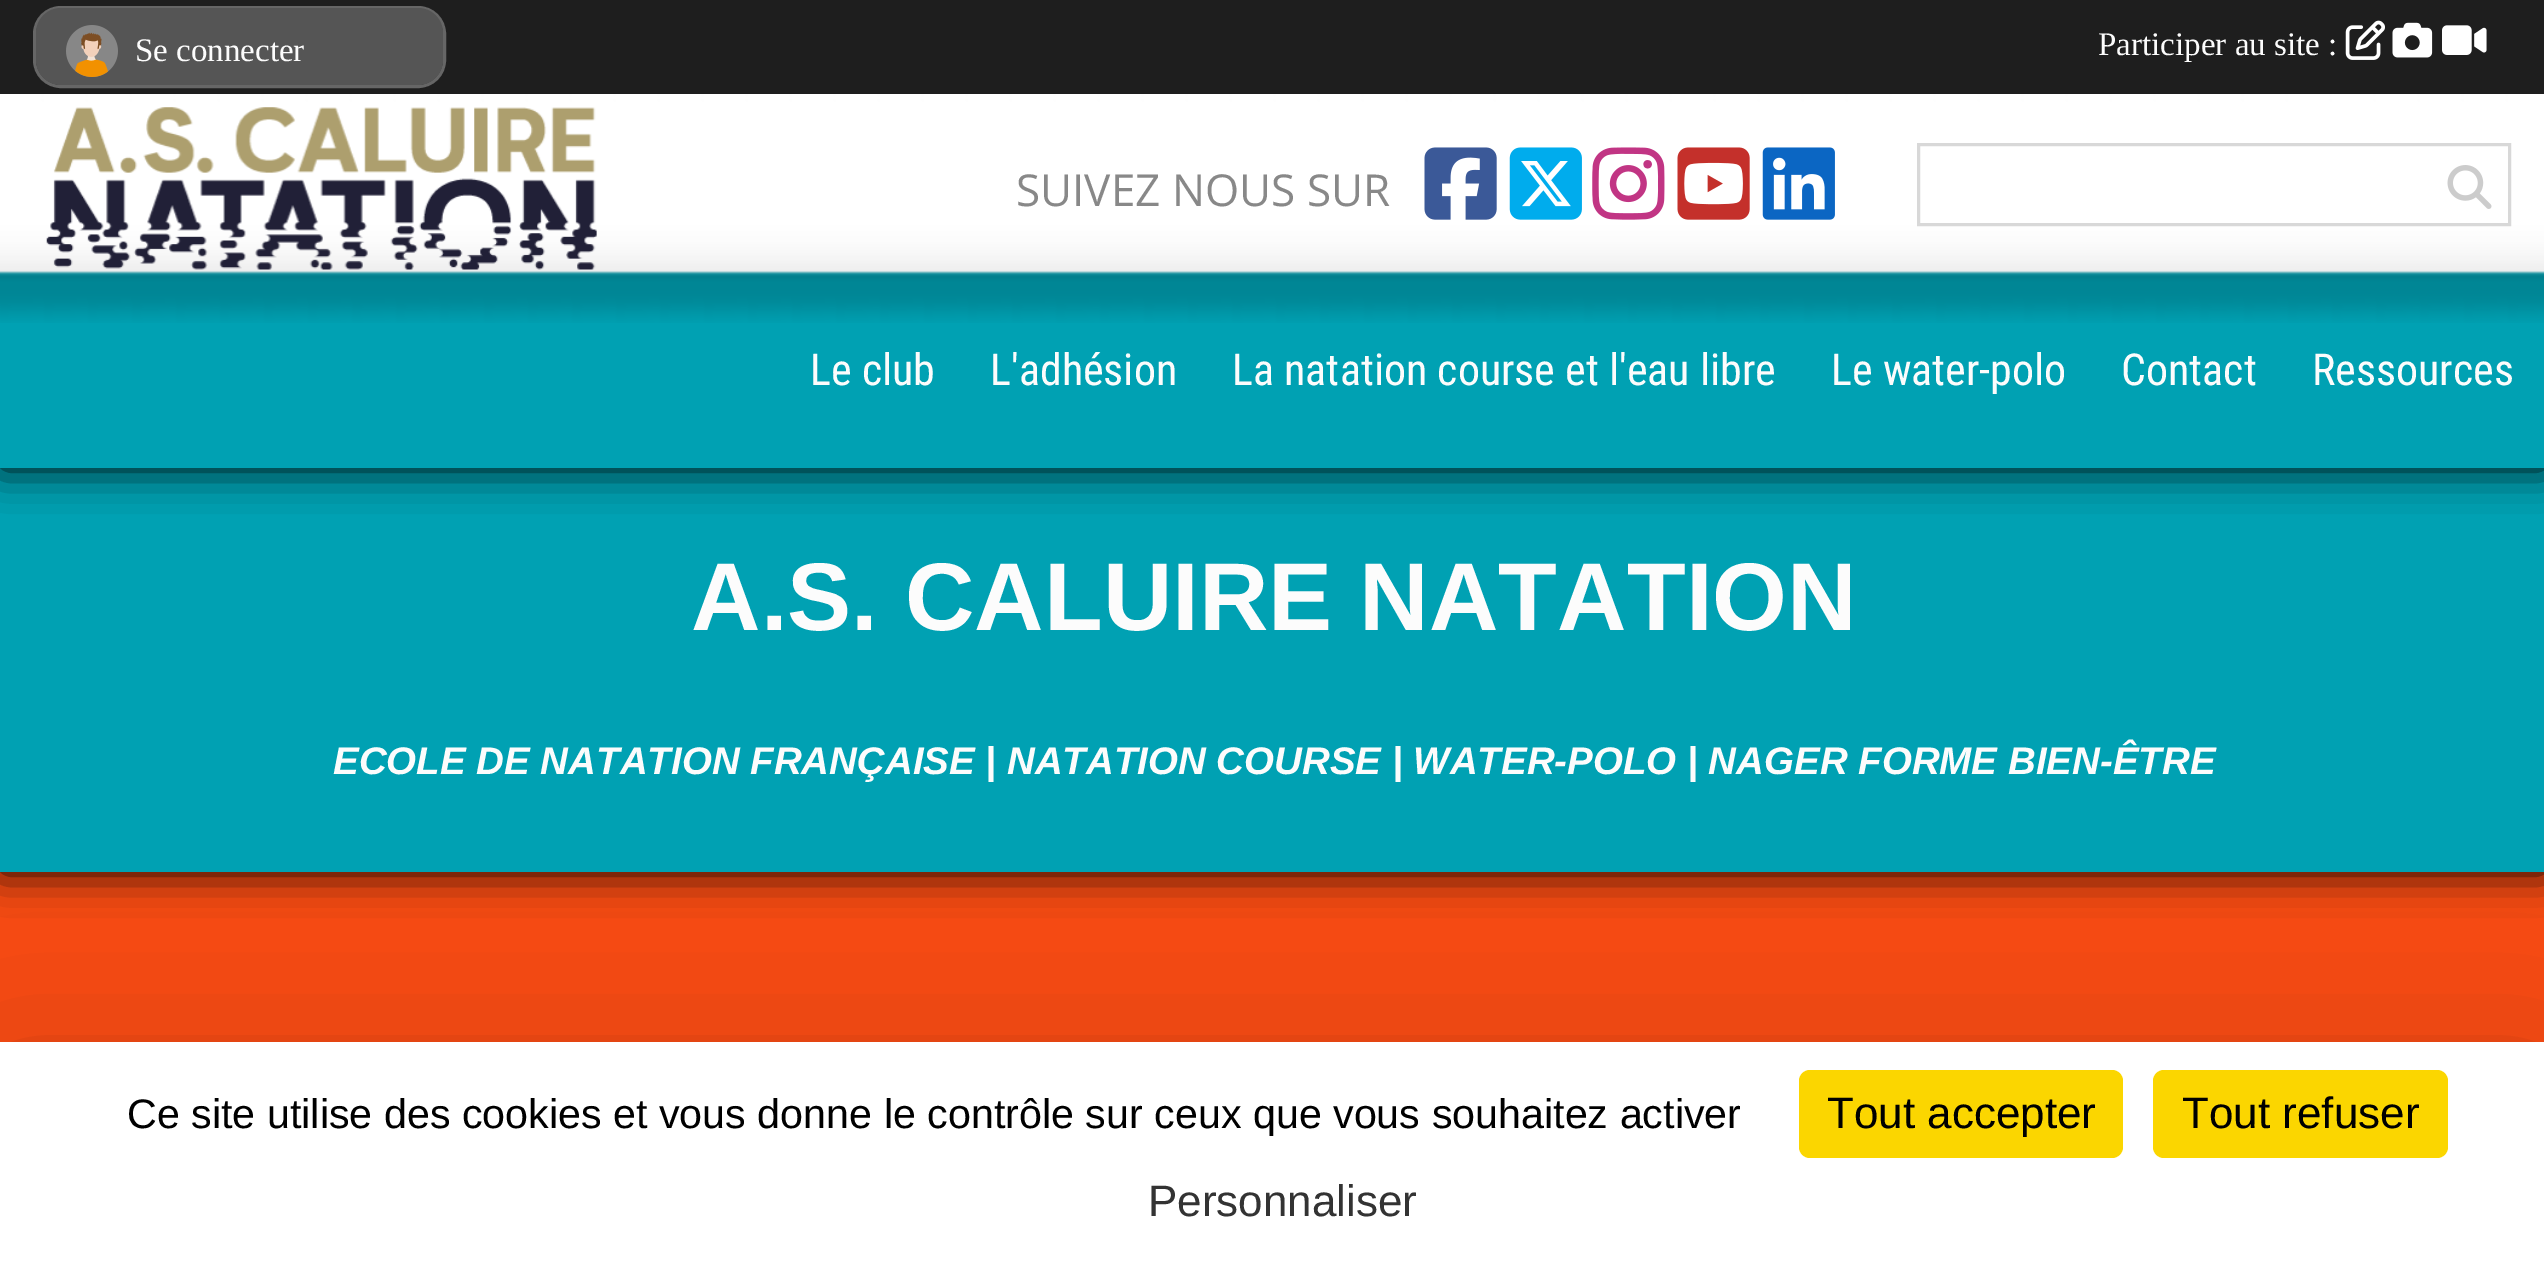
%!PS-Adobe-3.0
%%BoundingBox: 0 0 2544 1272
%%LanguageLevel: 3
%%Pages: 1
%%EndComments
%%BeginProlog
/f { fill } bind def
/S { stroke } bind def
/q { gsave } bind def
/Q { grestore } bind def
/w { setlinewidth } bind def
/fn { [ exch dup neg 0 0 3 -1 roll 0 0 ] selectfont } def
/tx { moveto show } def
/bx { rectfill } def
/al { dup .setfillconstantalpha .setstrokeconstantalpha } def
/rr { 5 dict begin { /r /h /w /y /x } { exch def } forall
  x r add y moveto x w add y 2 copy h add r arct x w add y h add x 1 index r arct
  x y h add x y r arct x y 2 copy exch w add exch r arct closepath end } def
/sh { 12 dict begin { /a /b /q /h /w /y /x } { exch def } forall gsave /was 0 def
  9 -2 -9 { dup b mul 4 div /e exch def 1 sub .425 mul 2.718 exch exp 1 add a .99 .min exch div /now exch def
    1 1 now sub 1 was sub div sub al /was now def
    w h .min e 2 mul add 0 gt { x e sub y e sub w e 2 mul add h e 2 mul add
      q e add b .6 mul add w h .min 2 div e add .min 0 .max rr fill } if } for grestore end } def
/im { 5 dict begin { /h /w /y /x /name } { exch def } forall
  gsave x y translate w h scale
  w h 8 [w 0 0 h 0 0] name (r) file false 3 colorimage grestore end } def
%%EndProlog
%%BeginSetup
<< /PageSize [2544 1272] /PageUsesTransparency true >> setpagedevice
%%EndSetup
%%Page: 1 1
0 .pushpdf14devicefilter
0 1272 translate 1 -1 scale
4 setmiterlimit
0.969 0.294 0.075 setrgbcolor
0 0 2544 1272 bx
0 setgray
0 468 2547 404 0 20.5 1 sh
0 0.631 0.702 setrgbcolor
0 468 2544 404 bx
0 setgray
0 94 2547 374 0 20.5 1 sh
0.118 setgray
0 0 2544 94 bx
0.4 setgray
3 w
34.5 7.5 410 79 26.5 rr S
0.333 setgray
36 8 407 77 25 rr f
(image0.raw) 66 25 52 52 im
/LiberationSerif-Regular 33 fn
0.988 setgray
(Se connecter) 135 61 tx
(Participer au site :) 2098 55 tx
(image1.raw) 2345 20 40 40 im
(image2.raw) 2392 22 41 36 im
(image3.raw) 2442 25 45 30 im
0 0.631 0.702 setrgbcolor
0 270 2544 198 bx
(image4.raw) 0 94 2544 229 im
(image5.raw) 46 107 551 163 im
/OpenSans-Regular 44 fn
0.533 setgray
(SUIVEZ NOUS SUR) 1016 206 tx
(image6.raw) 1424 147 73 73 im
(image7.raw) 1509 147 73 73 im
(image8.raw) 1592 147 73 73 im
(image9.raw) 1677 147 73 73 im
(image10.raw) 1762 147 73 73 im
0.847 setgray
1918.5 144.5 591 80 rectstroke
(image11.raw) 2447 165 45 44 im
/RobotoCondensed-Regular 44 fn
0.988 setgray
(Le club) 810 385 tx
(L'adhésion) 990 385 tx
(La natation course et l'eau libre) 1232 385 tx
(Le water-polo) 1831 385 tx
(Contact) 2121 385 tx
(Ressources) 2312 385 tx
/LiberationSans-Bold 96.25 fn
(A.S. CALUIRE NATATION) 691 630 tx
/LiberationSans-BoldItalic 38.5 fn
(ECOLE DE NATATION FRANÇAISE | NATATION COURSE | WATER-POLO | NAGER FORME BIEN-ÊTRE) 333 774 tx
0 setgray
0 1097 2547 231 0 82.5 0.25 sh
1 setgray
0 1042 2544 230 bx
q
99 1089 1669 47 rectclip
/LiberationSans-Regular 41.25 fn
0 setgray
(Ce site utilise des cookies et vous donne le contrôle sur ceux que vous souhaitez activer) 127 1128 tx
Q
0.984 0.839 0 setrgbcolor
1799 1070 324 88 11 rr f
/LiberationSans-Regular 44 fn
0 setgray
(Tout accepter) 1827 1128 tx
0.984 0.839 0 setrgbcolor
2153 1070 295 88 11 rr f
0 setgray
(Tout refuser) 2182 1128 tx
0.2 setgray
(Personnaliser) 1148 1216 tx
.poppdf14devicefilter showpage
%%EOF
